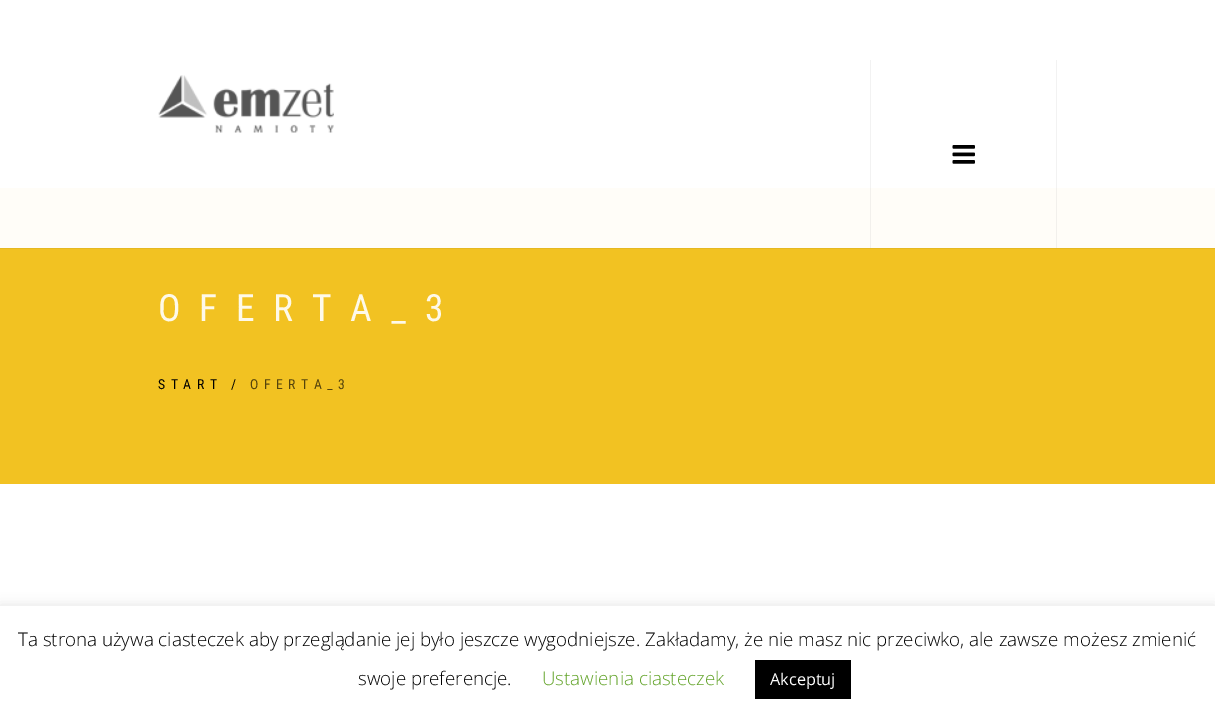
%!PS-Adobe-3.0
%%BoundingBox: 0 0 1215 720
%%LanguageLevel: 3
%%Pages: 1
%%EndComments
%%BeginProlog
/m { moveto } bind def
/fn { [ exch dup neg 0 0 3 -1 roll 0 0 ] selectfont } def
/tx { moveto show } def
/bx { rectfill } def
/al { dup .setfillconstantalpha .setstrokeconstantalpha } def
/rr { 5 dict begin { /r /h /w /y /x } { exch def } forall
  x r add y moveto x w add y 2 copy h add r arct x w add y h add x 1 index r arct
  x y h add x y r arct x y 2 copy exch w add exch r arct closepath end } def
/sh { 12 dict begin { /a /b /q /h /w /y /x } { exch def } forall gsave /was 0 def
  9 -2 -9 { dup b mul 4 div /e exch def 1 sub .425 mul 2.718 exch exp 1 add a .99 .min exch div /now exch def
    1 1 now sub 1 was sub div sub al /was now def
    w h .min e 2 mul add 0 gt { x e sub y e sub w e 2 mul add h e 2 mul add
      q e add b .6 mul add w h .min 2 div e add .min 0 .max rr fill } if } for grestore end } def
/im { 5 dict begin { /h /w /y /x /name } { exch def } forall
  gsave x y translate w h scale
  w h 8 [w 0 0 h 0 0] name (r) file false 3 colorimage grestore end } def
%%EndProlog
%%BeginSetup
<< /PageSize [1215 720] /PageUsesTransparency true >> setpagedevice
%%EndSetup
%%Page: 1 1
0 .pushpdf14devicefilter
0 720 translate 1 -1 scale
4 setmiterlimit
1 setgray
0 0 1215 720 bx
0.949 setgray
870 60 1 128 bx
1056 60 1 128 bx
0.902 0.722 0.125 setrgbcolor
0 248 1215 1 bx
(image0.raw) 158 75 176 58 im
(image1.raw) 952 145 23 19 im
0.949 0.761 0.133 setrgbcolor
0 249 1215 235 bx
1 0.992 0.973 setrgbcolor
0 188 1215 60 bx
0.949 0.941 0.925 setrgbcolor
870 188 1 60 bx
1056 188 1 60 bx
/RobotoCondensed-Regular 37.5 fn
0.996 0.976 0.914 setrgbcolor
158 321 m 18.75 0 (OFERTA_3) ashow
/RobotoCondensed-Regular 13.75 fn
0 setgray
158 389 m 5.5 0 (START /) ashow
0.333 0.267 0.047 setrgbcolor
250 389 m 5.5 0 (OFERTA_3) ashow
0.675 0.671 0.671 setrgbcolor
0 605 1215 114 0 6 0.3 sh
1 setgray
0 606 1215 114 bx
/OpenSans-Light 18.75 fn
0 setgray
(Ta strona używa ciasteczek aby przeglądanie jej było jeszcze wygodniejsze. Zakładamy, że nie masz nic przeciwko, ale zawsze możesz zmienić) 18 646 tx
(swoje preferencje.) 358 685 tx
0.384 0.639 0.161 setrgbcolor
(Ustawienia ciasteczek) 542 685 tx
0 setgray
755 660 96 39 bx
/OpenSans-Regular 16.25 fn
1 setgray
(Akceptuj) 770 685 tx
.poppdf14devicefilter showpage
%%EOF
